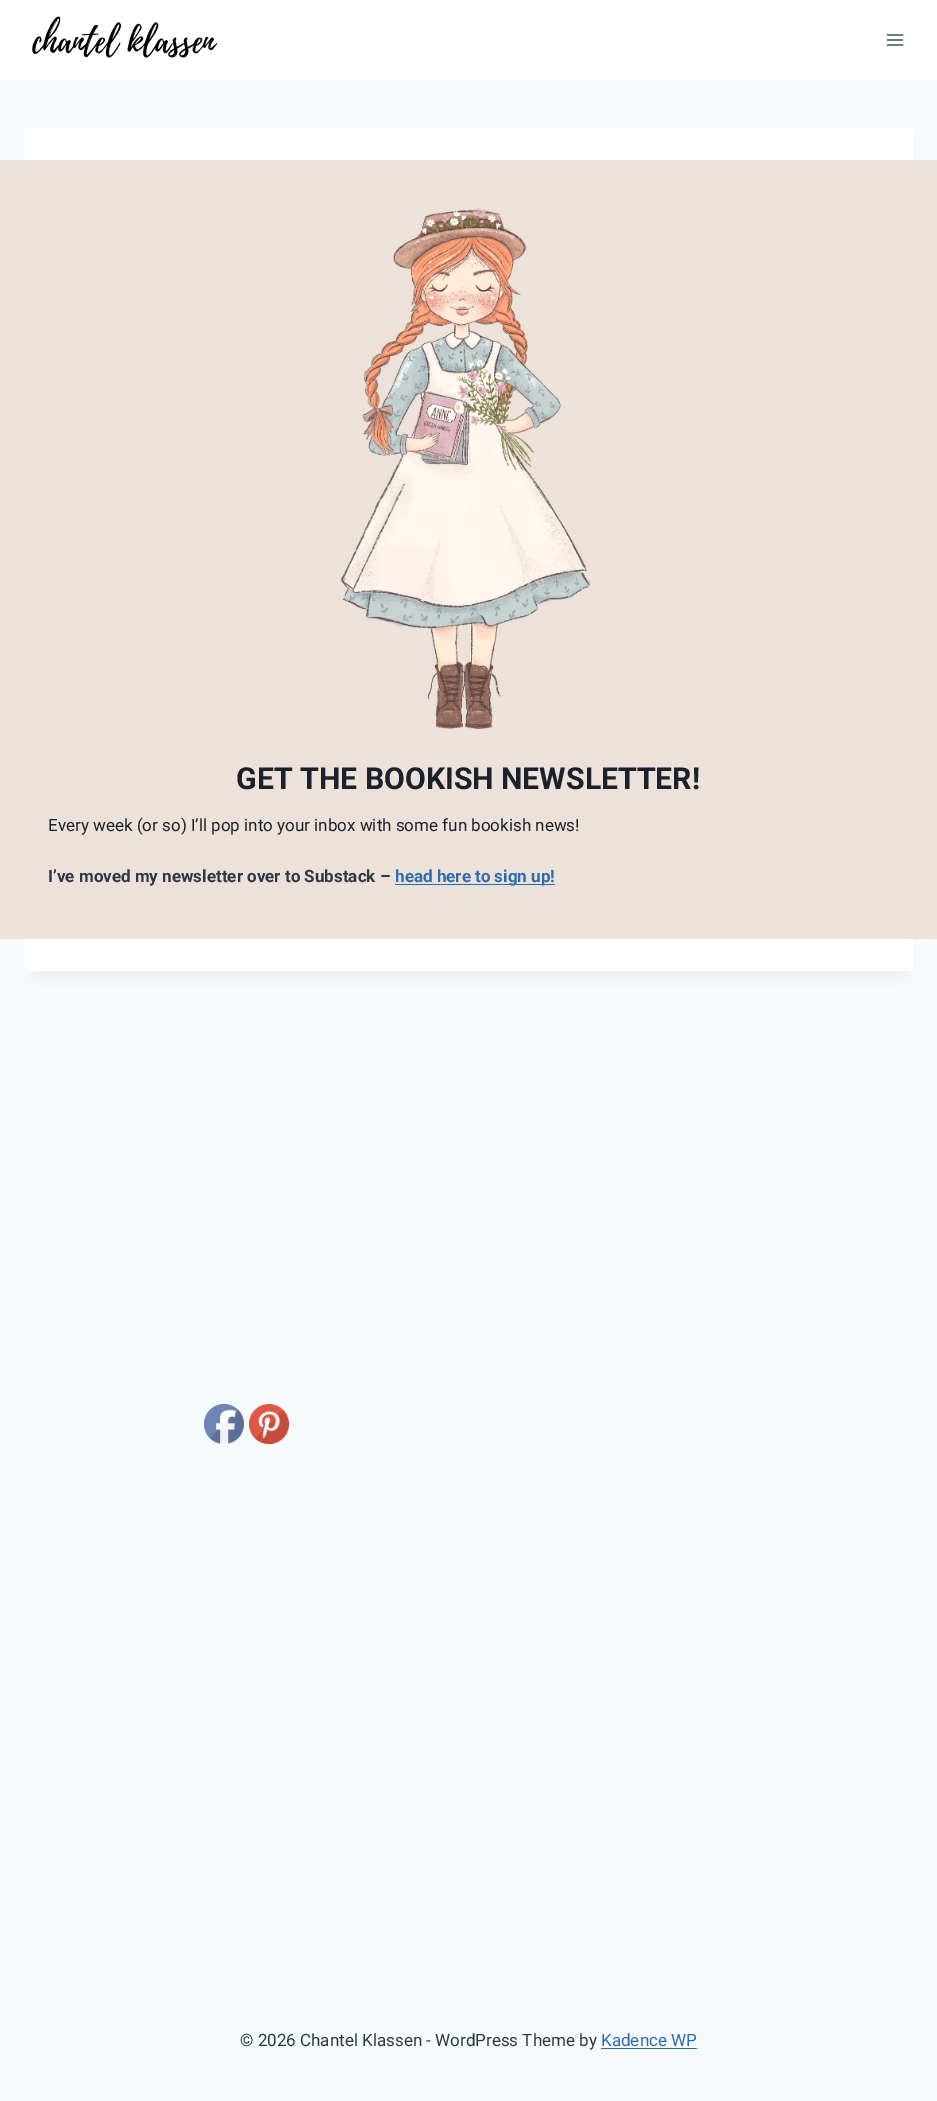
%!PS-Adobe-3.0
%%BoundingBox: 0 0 937 2101
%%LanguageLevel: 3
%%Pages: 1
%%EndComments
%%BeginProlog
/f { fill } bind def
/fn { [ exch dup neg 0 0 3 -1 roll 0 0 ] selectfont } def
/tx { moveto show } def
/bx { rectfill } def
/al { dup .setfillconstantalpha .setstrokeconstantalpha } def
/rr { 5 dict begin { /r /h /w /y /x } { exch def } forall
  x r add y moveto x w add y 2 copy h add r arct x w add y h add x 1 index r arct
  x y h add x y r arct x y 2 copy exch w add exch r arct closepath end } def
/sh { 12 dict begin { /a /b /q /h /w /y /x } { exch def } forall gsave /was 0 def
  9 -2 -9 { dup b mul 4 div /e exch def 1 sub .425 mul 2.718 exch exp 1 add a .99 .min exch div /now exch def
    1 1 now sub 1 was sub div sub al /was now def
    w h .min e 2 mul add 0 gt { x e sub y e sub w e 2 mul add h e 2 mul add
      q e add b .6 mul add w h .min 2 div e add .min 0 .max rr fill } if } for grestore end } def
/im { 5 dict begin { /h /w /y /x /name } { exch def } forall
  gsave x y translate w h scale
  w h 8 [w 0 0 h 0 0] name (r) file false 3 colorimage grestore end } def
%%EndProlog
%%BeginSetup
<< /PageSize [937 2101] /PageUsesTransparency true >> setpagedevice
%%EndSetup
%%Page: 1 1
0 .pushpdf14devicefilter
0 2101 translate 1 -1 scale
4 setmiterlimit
0.969 0.98 0.988 setrgbcolor
0 0 937 2101 bx
1 setgray
0 0 937 80 bx
(image0.raw) 32 16 186 42 im
(image1.raw) 886 34 18 12 im
0 setgray
34 153 869 823 0 7.5 0.05 sh
1 setgray
24 128 889 843 4 rr f
0.925 0.886 0.851 setrgbcolor
0 160 937 779 bx
(image2.raw) 340 208 251 521 im
/Roboto-Bold 30.25 fn
0.102 0.125 0.173 setrgbcolor
(GET THE BOOKISH NEWSLETTER!) 236 789 tx
/Roboto-Regular 17 fn
(Every week \(or so\) I’ll pop into your inbox with some fun bookish news!) 48 831 tx
/Roboto-Bold 17 fn
0.176 0.216 0.282 setrgbcolor
(I’ve moved my newsletter over to Substack –) 48 882 tx
0.169 0.424 0.69 setrgbcolor
395 884 160 1 bx
(head here to sign up!) 395 882 tx
/Roboto-Regular 17 fn
0.176 0.216 0.282 setrgbcolor
(© 2026 Chantel Klassen - WordPress Theme by) 240 2046 tx
0.169 0.424 0.69 setrgbcolor
(Kadence WP) 601 2046 tx
601 2048 96 1 bx
(image3.raw) 204 1404 40 40 im
(image4.raw) 249 1404 40 40 im
.poppdf14devicefilter showpage
%%EOF
